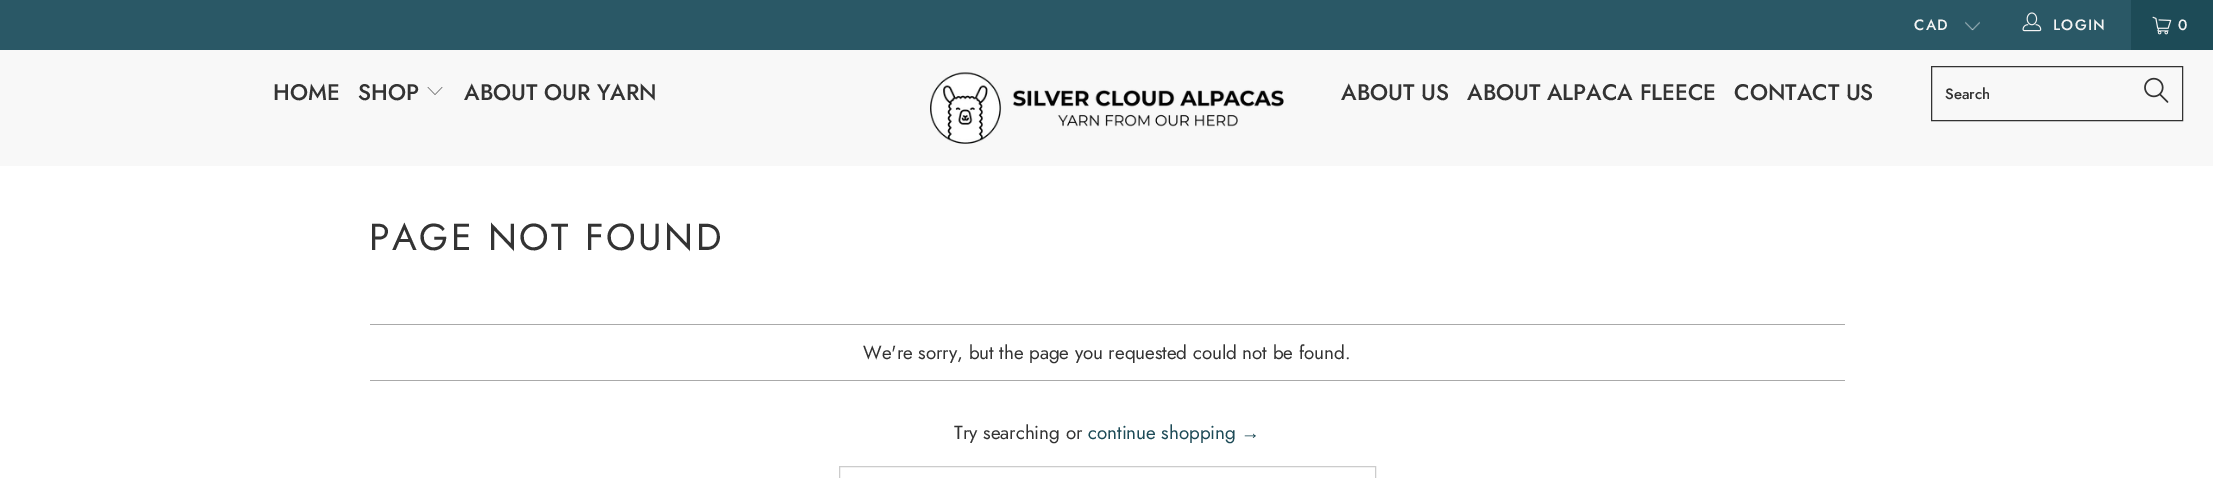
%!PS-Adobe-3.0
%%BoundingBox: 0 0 2213 478
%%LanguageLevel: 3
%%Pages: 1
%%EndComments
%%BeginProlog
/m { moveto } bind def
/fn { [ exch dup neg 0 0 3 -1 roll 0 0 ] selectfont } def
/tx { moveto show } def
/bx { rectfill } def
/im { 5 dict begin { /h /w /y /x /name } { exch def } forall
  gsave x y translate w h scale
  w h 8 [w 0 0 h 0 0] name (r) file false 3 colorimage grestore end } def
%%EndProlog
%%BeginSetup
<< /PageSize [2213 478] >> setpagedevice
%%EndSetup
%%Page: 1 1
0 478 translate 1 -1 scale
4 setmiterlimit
1 setgray
0 0 2213 478 bx
0.165 0.345 0.4 setrgbcolor
0 0 2131 50 bx
(image0.raw) 1965 21 15 10 im
/Jost-Medium 15 fn
0.957 setgray
1914 30 m 1.25 0 (CAD) ashow
(image1.raw) 2022 12 20 20 im
2053 30 m 1.25 0 (LOGIN) ashow
0.114 0.294 0.341 setrgbcolor
2131 0 82 50 bx
(image2.raw) 2152 16 20 19 im
0.957 setgray
2178 30 m 1.25 0 (0) ashow
0.973 setgray
0 50 2213 116 bx
/Jost-Medium 22.5 fn
0.2 setgray
(HOME) 273 100 tx
(SHOP) 358 100 tx
(image3.raw) 427 87 16 8 im
(ABOUT OUR YARN) 464 100 tx
(image4.raw) 930 72 354 72 im
(ABOUT US) 1341 100 tx
(ABOUT ALPACA FLEECE) 1467 100 tx
(CONTACT US) 1734 100 tx
1931.5 66.5 251 54 rectstroke
/Jost-Medium 15 fn
(Search) 1945 99 tx
(image5.raw) 2144 77 25 26 im
/Jost-Regular 37.5 fn
369 250 m 2.5 0 (PAGE NOT FOUND) ashow
0.667 setgray
370 324 1475 1 bx
370 380 1475 1 bx
/Jost-Regular 18.75 fn
0.2 setgray
(We're sorry, but the page you requested could not be found.) 863 359 tx
(Try searching or) 954 439 tx
0.114 0.294 0.341 setrgbcolor
(continue shopping) 1088 439 tx
/LiberationSans-Regular 18.75 fn
(→) 1241 439 tx
0.8 setgray
839.5 466.5 536 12 rectstroke
showpage
%%EOF
